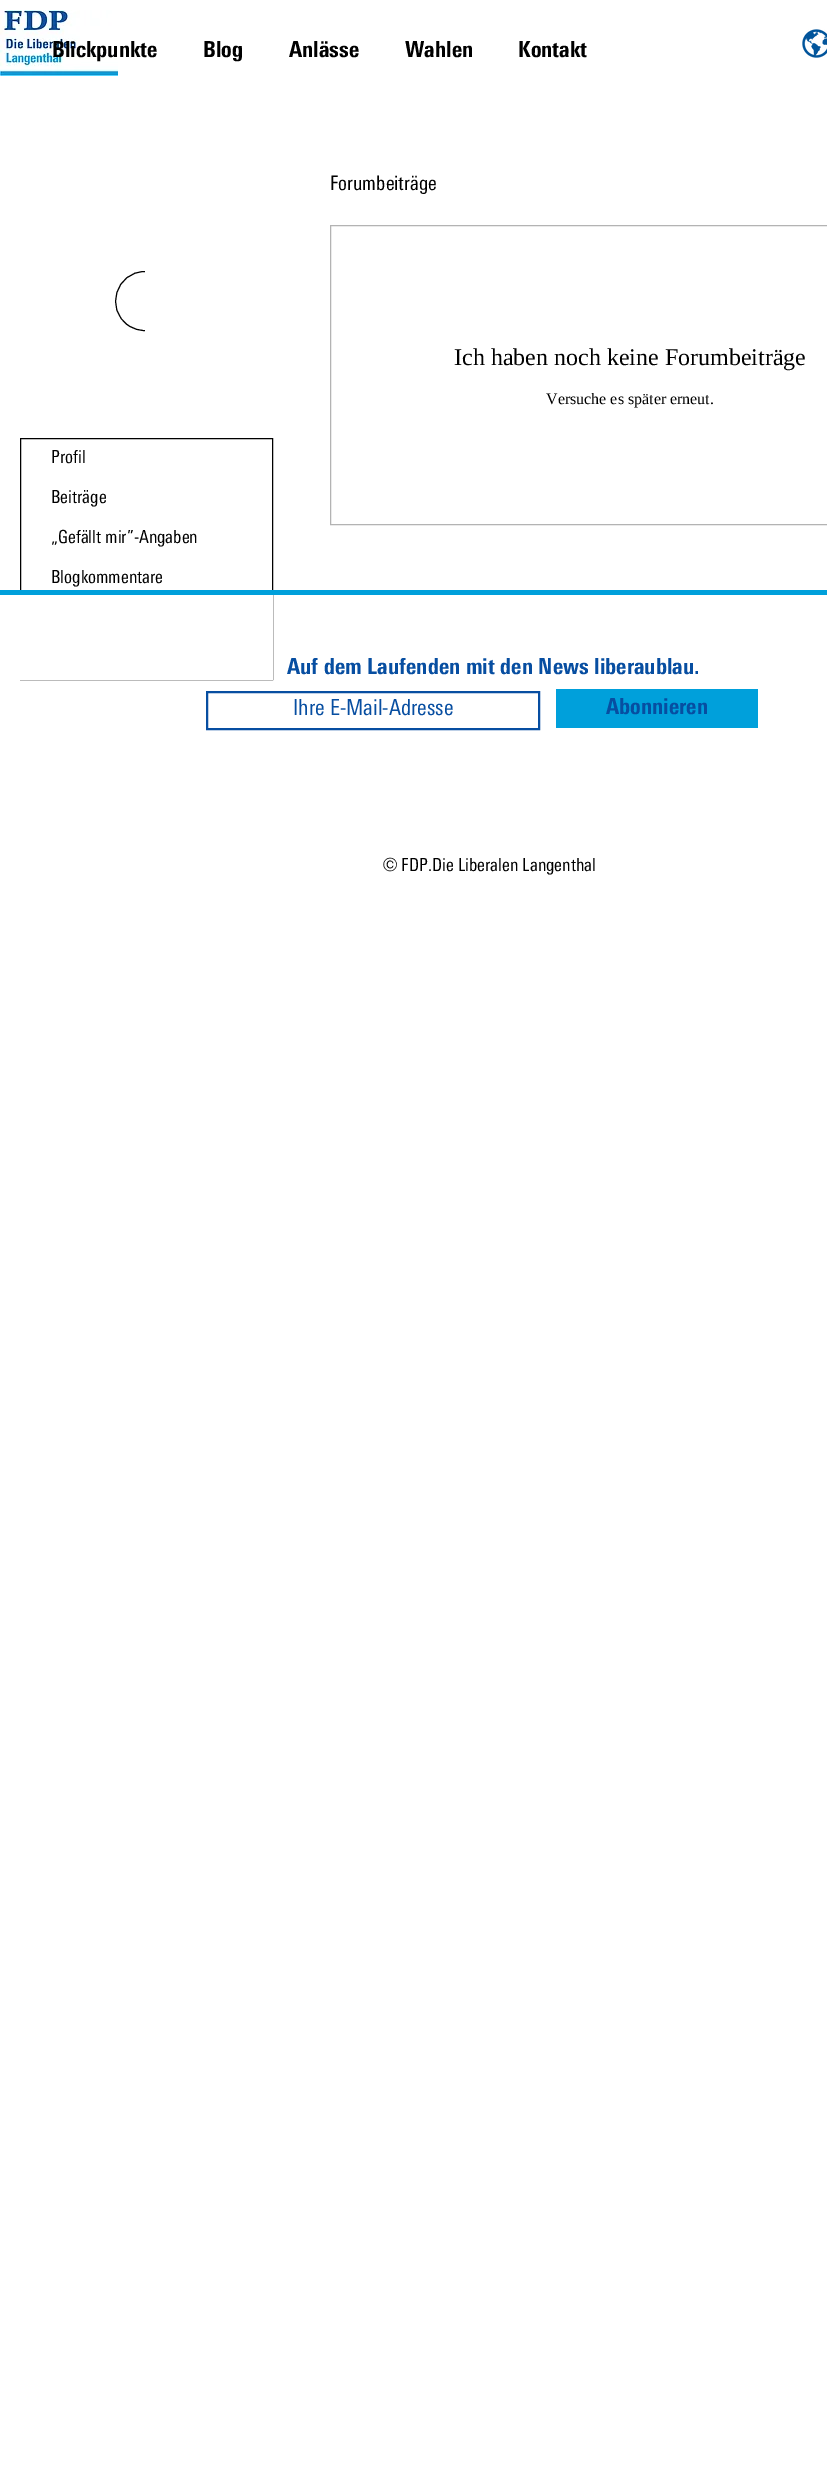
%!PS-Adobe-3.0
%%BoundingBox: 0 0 827 2484
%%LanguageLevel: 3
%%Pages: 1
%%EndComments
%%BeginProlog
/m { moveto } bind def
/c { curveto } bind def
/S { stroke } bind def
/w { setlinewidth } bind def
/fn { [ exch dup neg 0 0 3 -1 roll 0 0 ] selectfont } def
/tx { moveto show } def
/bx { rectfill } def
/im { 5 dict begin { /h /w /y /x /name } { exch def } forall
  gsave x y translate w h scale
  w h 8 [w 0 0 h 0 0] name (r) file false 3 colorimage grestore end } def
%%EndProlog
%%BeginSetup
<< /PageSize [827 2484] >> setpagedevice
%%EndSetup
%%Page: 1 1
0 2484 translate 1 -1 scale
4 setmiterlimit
1 setgray
0 0 827 2484 bx
(image0.raw) 0 10 118 66 im
(image1.raw) 802 29 25 29 im
/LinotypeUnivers-Black 22 fn
0 setgray
(Blickpunkte) 52 57 tx
(Blog) 203 57 tx
(Anlässe) 289 57 tx
(Wahlen) 405 57 tx
(Kontakt) 518 57 tx
/LinotypeUnivers-Regular 20 fn
(Forumbeiträge) 330 190 tx
0.702 setgray
330.5 225.5 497 299 rectstroke
/LiberationSerif-Regular 24 fn
0 setgray
(Ich haben noch keine Forumbeiträge) 454 365 tx
/LiberationSerif-Regular 16 fn
(Versuche es später erneut.) 546 404 tx
145 330.5 m 139 330.5 133.5 329 128.5 325.5 c 104.5 309.5 116 271.5 145 271.5 c S
20.5 438.5 252 241 rectstroke
/LinotypeUnivers-Regular 18 fn
(Profil) 51 463 tx
(Beiträge) 51 503 tx
(„Gefällt mir”-Angaben) 51 543 tx
(Blogkommentare) 51 583 tx
1 setgray
20 595 253 85 bx
0 0.627 0.859 setrgbcolor
0 590 827 5 bx
/LinotypeUnivers-Black 22 fn
0.027 0.306 0.631 setrgbcolor
(Auf dem Laufenden mit den News liberaublau.) 287 674 tx
2 w
207 692 332 37 rectstroke
/LinotypeUnivers-Regular 22 fn
(Ihre E-Mail-Adresse) 293 715 tx
0 0.627 0.859 setrgbcolor
556 689 202 39 bx
/LinotypeUnivers-Black 22 fn
0.027 0.306 0.631 setrgbcolor
(Abonnieren) 606 714 tx
/LinotypeUnivers-Regular 18 fn
0 setgray
(© FDP.Die Liberalen Langenthal) 383 871 tx
showpage
%%EOF
